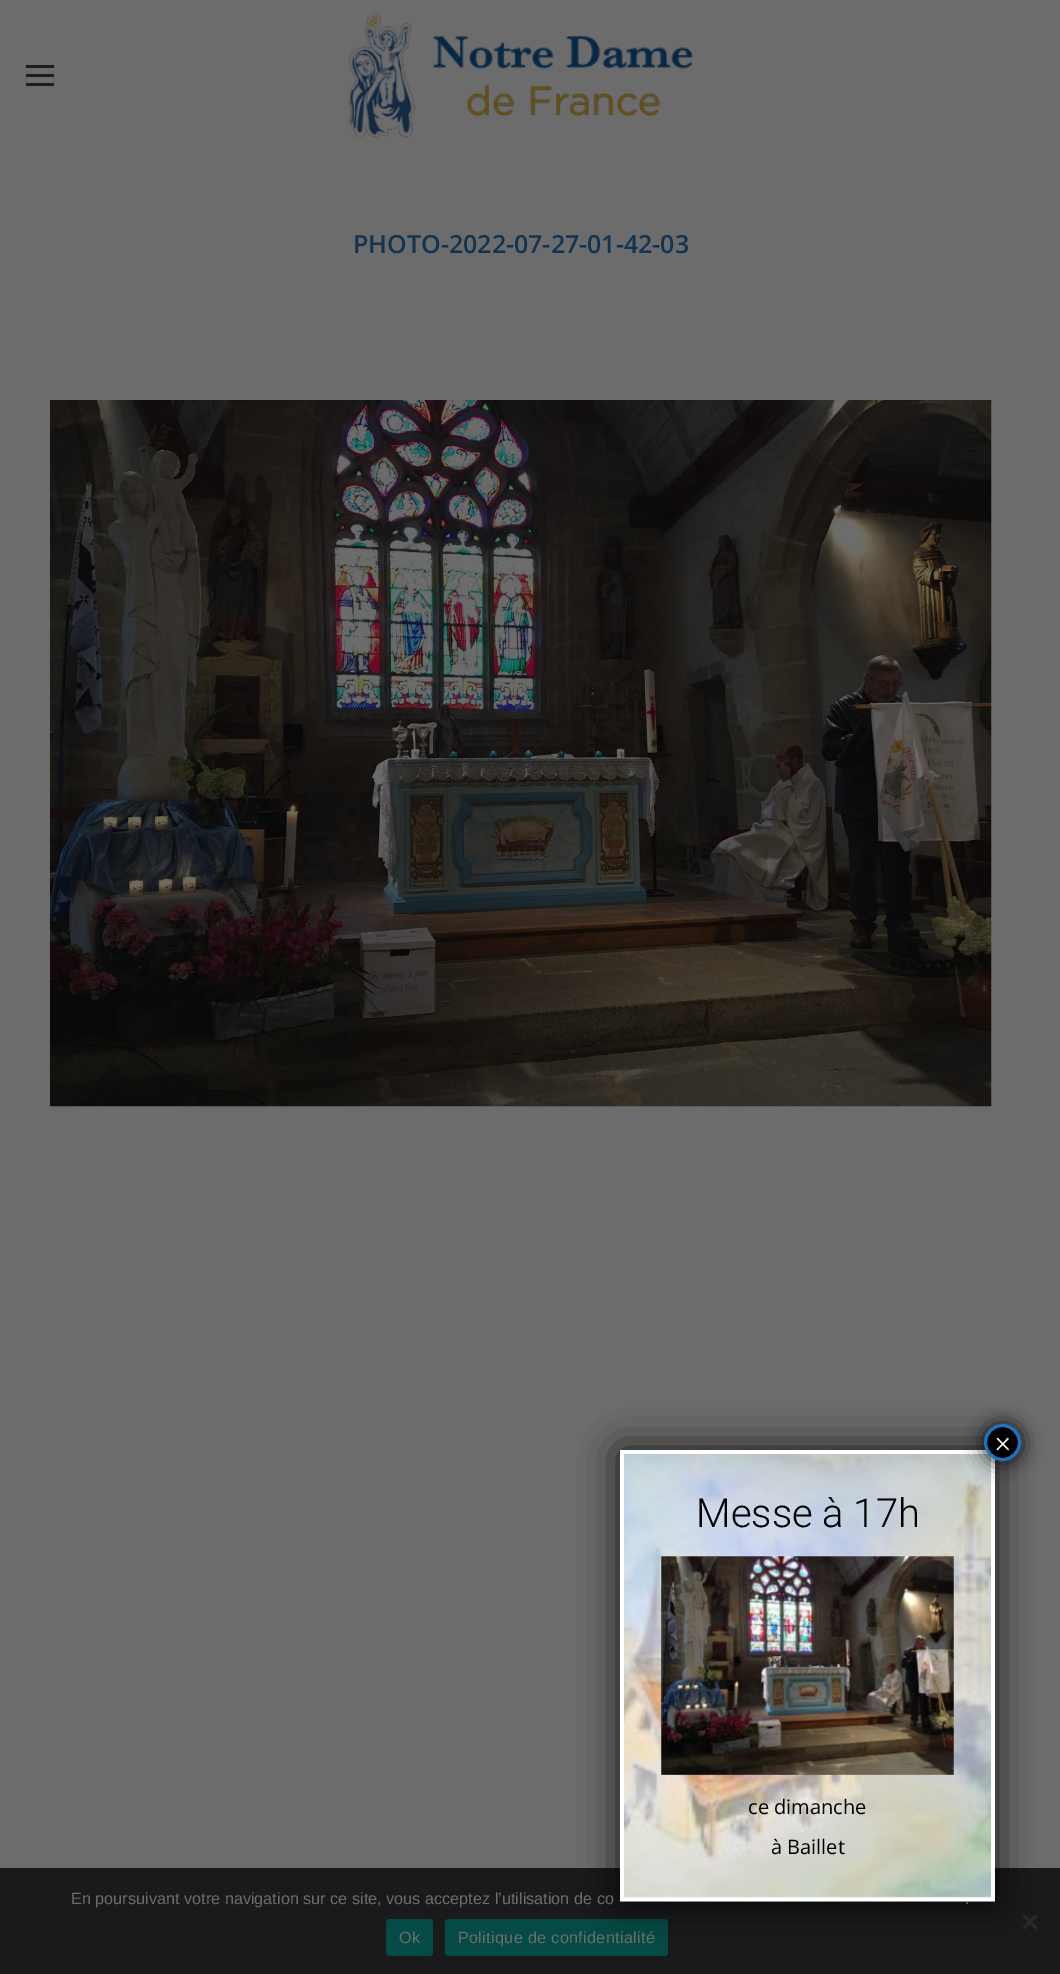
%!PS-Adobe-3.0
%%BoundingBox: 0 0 1060 1974
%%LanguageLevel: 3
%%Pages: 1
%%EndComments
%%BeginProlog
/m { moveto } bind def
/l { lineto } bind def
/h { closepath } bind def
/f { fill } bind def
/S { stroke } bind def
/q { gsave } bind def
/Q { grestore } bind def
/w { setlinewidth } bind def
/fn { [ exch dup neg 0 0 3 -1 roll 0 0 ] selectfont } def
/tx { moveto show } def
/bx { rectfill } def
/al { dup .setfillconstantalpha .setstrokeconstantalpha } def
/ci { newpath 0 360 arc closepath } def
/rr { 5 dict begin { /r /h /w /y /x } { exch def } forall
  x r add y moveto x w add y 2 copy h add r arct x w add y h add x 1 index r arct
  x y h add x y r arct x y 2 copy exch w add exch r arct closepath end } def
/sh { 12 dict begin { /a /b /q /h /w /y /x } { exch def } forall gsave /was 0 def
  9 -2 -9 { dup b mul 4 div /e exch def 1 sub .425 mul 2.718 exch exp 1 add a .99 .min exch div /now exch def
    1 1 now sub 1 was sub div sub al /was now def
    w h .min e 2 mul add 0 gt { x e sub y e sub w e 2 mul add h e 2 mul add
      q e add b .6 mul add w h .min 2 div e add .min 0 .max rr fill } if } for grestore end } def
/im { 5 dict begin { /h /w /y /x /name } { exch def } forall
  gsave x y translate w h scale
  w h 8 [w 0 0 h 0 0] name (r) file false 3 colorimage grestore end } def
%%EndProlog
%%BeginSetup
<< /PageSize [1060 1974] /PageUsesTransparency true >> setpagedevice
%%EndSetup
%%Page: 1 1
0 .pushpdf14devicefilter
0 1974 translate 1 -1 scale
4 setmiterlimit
0.424 setgray
0 0 1060 1974 bx
0.114 setgray
26 65 28 3 bx
26 74 28 3 bx
26 83 28 3 bx
(image0.raw) 348 12 345 126 im
/OpenSans-SemiBold 25 fn
0.071 0.204 0.322 setrgbcolor
(PHOTO-2022-07-27-01-42-03) 353 253 tx
(image1.raw) 50 400 942 707 im
0.102 0.102 0.114 setrgbcolor
0 1868 1060 106 bx
0.165 0.165 0.169 setrgbcolor
1035.5 1914.5 m 1037.5 1916 l 1024.5 1929.5 l 1022.5 1927.5 l h f
1022.5 1916 m 1024.5 1914.5 l 1037.5 1927.5 l 1035.5 1929.5 l h f
0.024 0.29 0.271 setrgbcolor
445 1919 223 37 4 rr f
0.008 setgray
620 1450 375 451 1 19 0.85 sh
(image2.raw) 620 1453 375 445 im
1 setgray
3.8 w
622 1452 m 993 1452 l 993 1899.5 l 622 1899.5 l h S
0.47 al
624 1454 367 444 bx
1 al
0.008 setgray
983 1423 40 40 20 9.5 0.75 sh
0 setgray
1002.5 1442.5 17 ci q f Q
0.118 0.451 0.745 setrgbcolor
3 w
S
/Roboto-Light 30 fn
1 setgray
(×) 995 1452 tx
/Roboto-Light 40 fn
0 setgray
(Messe à 17h) 696 1527 tx
(image3.raw) 661 1556 293 219 im
/OpenSans-Regular 20 fn
(ce dimanche) 748 1814 tx
(à Baillet) 771 1854 tx
/LiberationSans-Regular 16.25 fn
0.424 setgray
(En poursuivant votre navigation sur ce site, vous acceptez l’utilisation de co) 71 1904 tx
(.) 965 1904 tx
0.024 0.29 0.271 setrgbcolor
386 1919 47 37 4 rr f
0.424 setgray
399 1943 m 0.3 0 (Ok) ashow
458 1943 m 0.3 0 (Politique de confidentialité) ashow
.poppdf14devicefilter showpage
%%EOF
